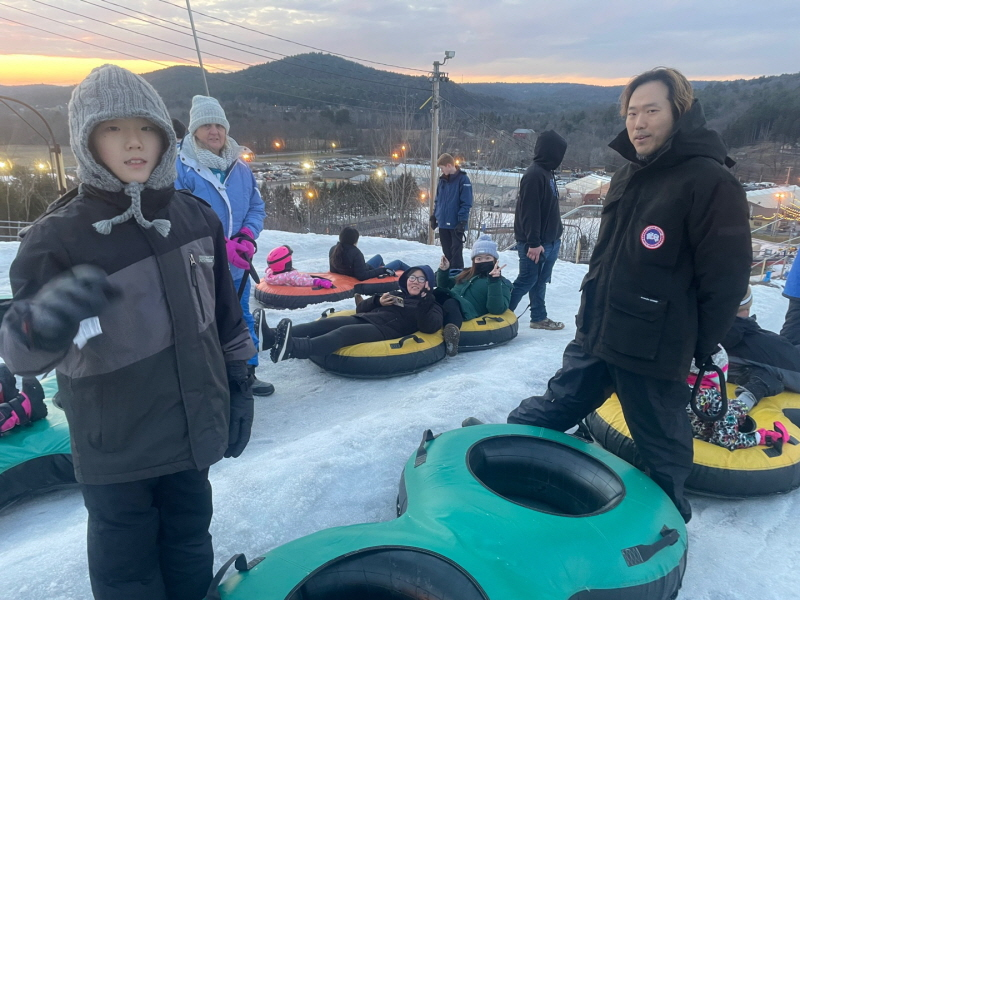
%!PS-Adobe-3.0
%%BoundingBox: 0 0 1006 1006
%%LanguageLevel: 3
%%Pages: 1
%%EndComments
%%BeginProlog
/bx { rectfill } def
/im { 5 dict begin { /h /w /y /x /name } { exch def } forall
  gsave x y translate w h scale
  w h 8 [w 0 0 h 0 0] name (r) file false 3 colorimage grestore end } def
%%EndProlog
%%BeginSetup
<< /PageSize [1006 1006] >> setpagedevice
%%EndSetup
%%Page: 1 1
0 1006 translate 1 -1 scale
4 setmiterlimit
1 setgray
0 0 1006 1006 bx
(image0.raw) 0 0 800 600 im
showpage
%%EOF
